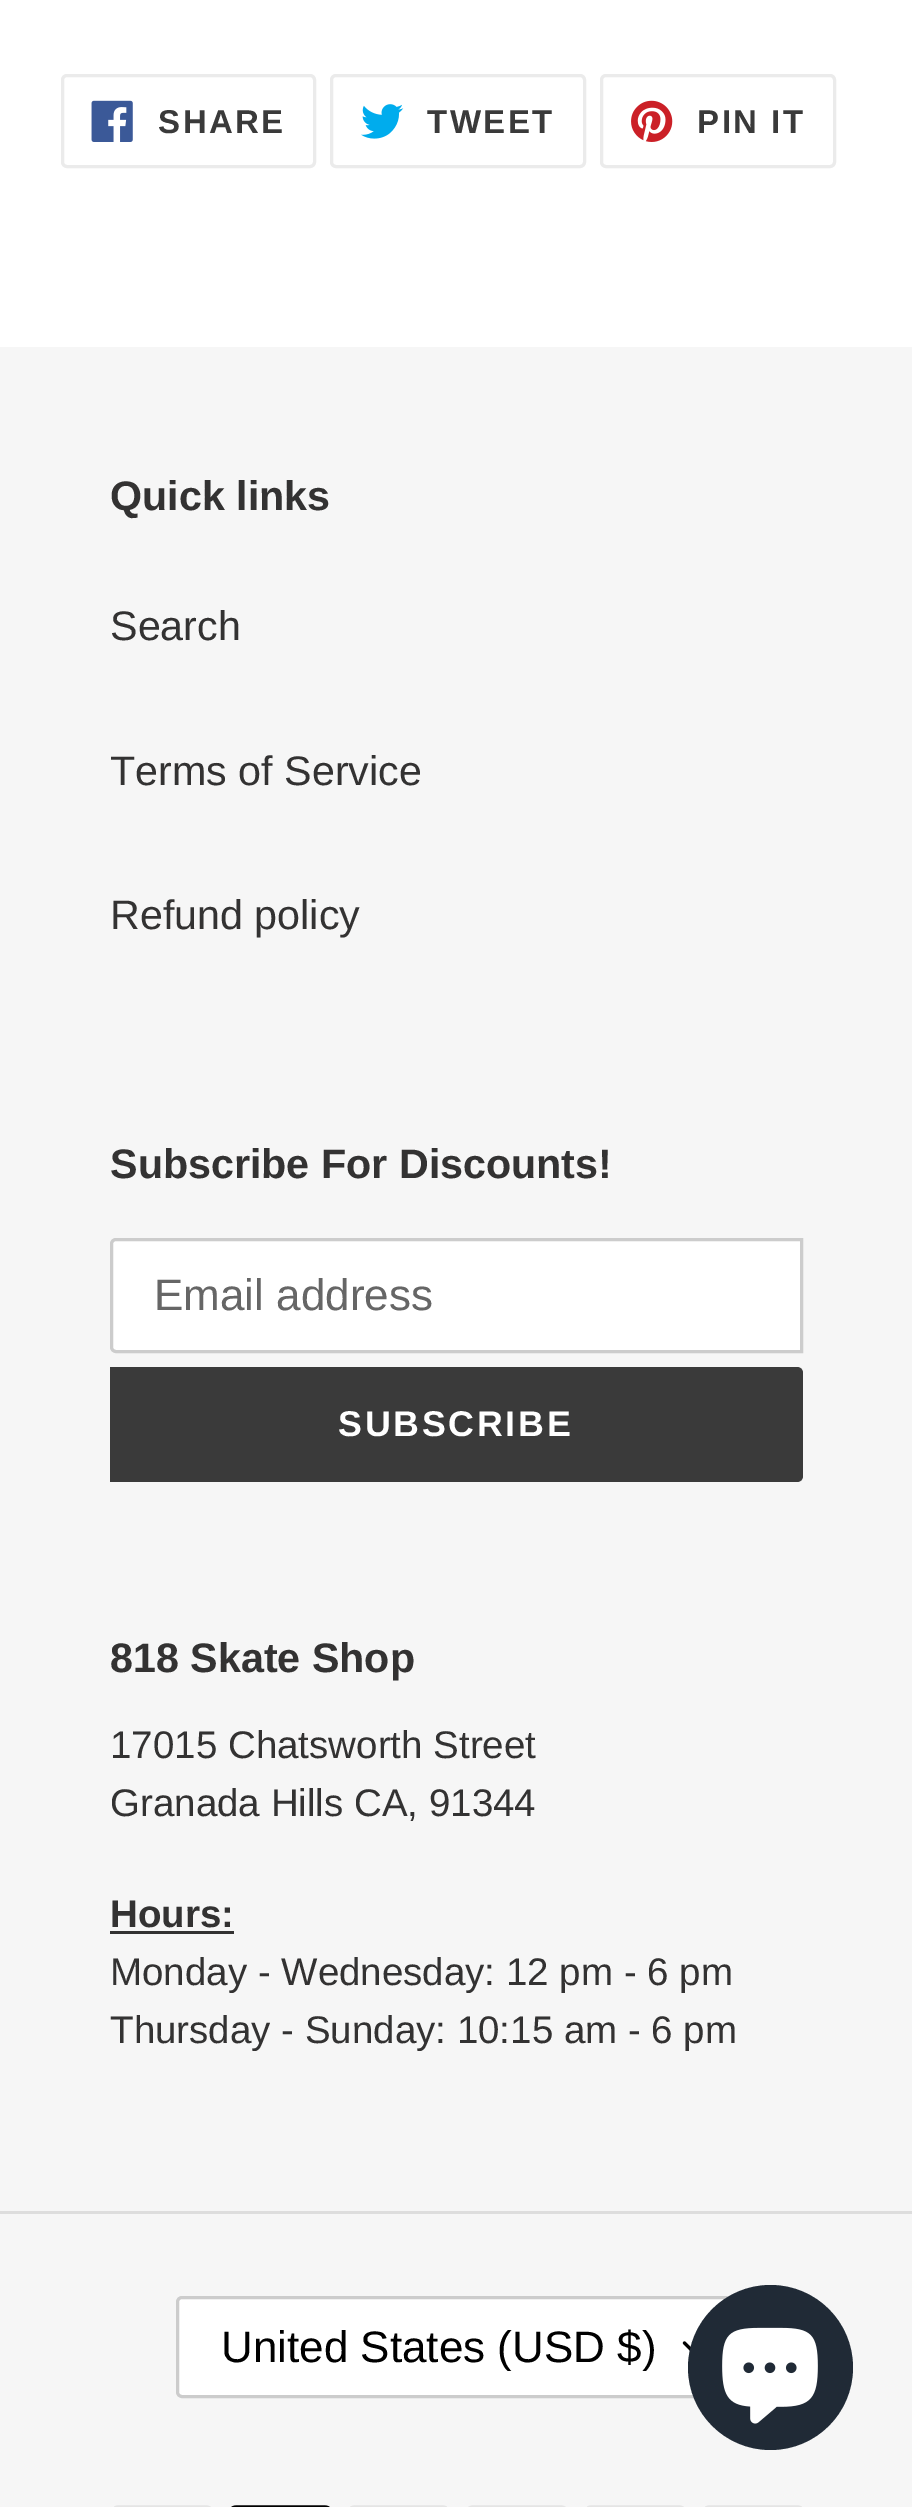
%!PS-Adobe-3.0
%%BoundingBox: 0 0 912 2507
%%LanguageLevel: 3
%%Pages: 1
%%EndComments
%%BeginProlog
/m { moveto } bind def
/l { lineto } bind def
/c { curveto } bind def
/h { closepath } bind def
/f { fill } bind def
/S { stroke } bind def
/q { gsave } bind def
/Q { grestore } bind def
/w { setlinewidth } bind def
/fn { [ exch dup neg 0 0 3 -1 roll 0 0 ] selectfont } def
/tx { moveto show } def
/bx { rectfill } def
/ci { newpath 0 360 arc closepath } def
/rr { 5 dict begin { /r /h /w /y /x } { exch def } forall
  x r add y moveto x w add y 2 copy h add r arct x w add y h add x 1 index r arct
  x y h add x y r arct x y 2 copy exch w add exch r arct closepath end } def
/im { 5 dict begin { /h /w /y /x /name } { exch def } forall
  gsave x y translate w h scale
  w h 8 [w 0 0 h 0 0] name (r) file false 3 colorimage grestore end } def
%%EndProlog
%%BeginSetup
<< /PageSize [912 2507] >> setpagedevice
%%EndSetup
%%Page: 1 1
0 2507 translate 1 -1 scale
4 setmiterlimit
1 setgray
0 0 912 2507 bx
0.922 setgray
3 w
62.5 75.5 252 91 4.5 rr S
(image0.raw) 91 100 42 42 im
/LiberationSans-Bold 33 fn
0.227 setgray
158 133 m 2.5 0 (SHARE) ashow
0.922 setgray
331.5 75.5 253 91 4.5 rr S
(image1.raw) 361 104 43 35 im
0.227 setgray
427 133 m 2.5 0 (TWEET) ashow
0.922 setgray
601.5 75.5 233 91 4.5 rr S
(image2.raw) 631 100 42 42 im
0.227 setgray
697 133 m 2.5 0 (PIN IT) ashow
0.965 setgray
0 347 912 2160 bx
/LiberationSans-Bold 41.25 fn
0.2 0.196 0.196 setrgbcolor
(Quick links) 110 510 tx
/LiberationSans-Regular 41.25 fn
(Search) 110 640 tx
(Terms of Service) 110 785 tx
(Refund policy) 110 929 tx
/LiberationSans-Bold 41.25 fn
(Subscribe For Discounts!) 110 1178 tx
1 setgray
116 1239.5 m 801.5 1239.5 l 801.5 1351.5 l 116 1351.5 l 113.5 1351.5 111.5 1349.5 111.5 1347 c 111.5 1244 l 111.5 1241.5 113.5 1239.5 116 1239.5 c h q f Q
0.8 setgray
S
/LiberationSans-Regular 44 fn
0.4 setgray
(Email address) 154 1310 tx
0.227 setgray
110 1367 m 797 1367 l 800.5 1367 803 1369.5 803 1373 c 803 1476 l 803 1479.5 800.5 1482 797 1482 c 110 1482 l h f
/LiberationSans-Bold 35.75 fn
1 setgray
338 1436 m 2.75 0 (SUBSCRIBE) ashow
/LiberationSans-Bold 41.25 fn
0.2 0.196 0.196 setrgbcolor
(818 Skate Shop) 110 1672 tx
/LiberationSans-Regular 38.5 fn
(17015 Chatsworth Street) 110 1758 tx
(Granada Hills CA, 91344) 110 1816 tx
/LiberationSans-Bold 38.5 fn
(Hours:) 110 1927 tx
110 1931 124 3 bx
/LiberationSans-Regular 38.5 fn
(Monday - Wednesday: 12 pm - 6 pm) 110 1985 tx
(Thursday - Sunday: 10:15 am - 6 pm) 110 2043 tx
0.867 setgray
0 2211 912 3 bx
1 setgray
176 2296 561 102 6 rr f
(image3.raw) 682 2341 9 10 im
0.8 setgray
177.5 2297.5 558 99 4.5 rr S
/LiberationSans-Regular 44 fn
0 setgray
(United States \(USD $\)) 221 2362 tx
(image4.raw) 114 2505 97 2 im
(image5.raw) 231 2505 99 2 im
(image6.raw) 350 2505 97 2 im
(image7.raw) 468 2505 98 2 im
(image4.raw) 587 2505 97 2 im
(image8.raw) 705 2505 97 2 im
0.125 0.165 0.212 setrgbcolor
770.5 2367.5 82.5 ci f
(image9.raw) 722 2327 96 97 im
showpage
%%EOF
